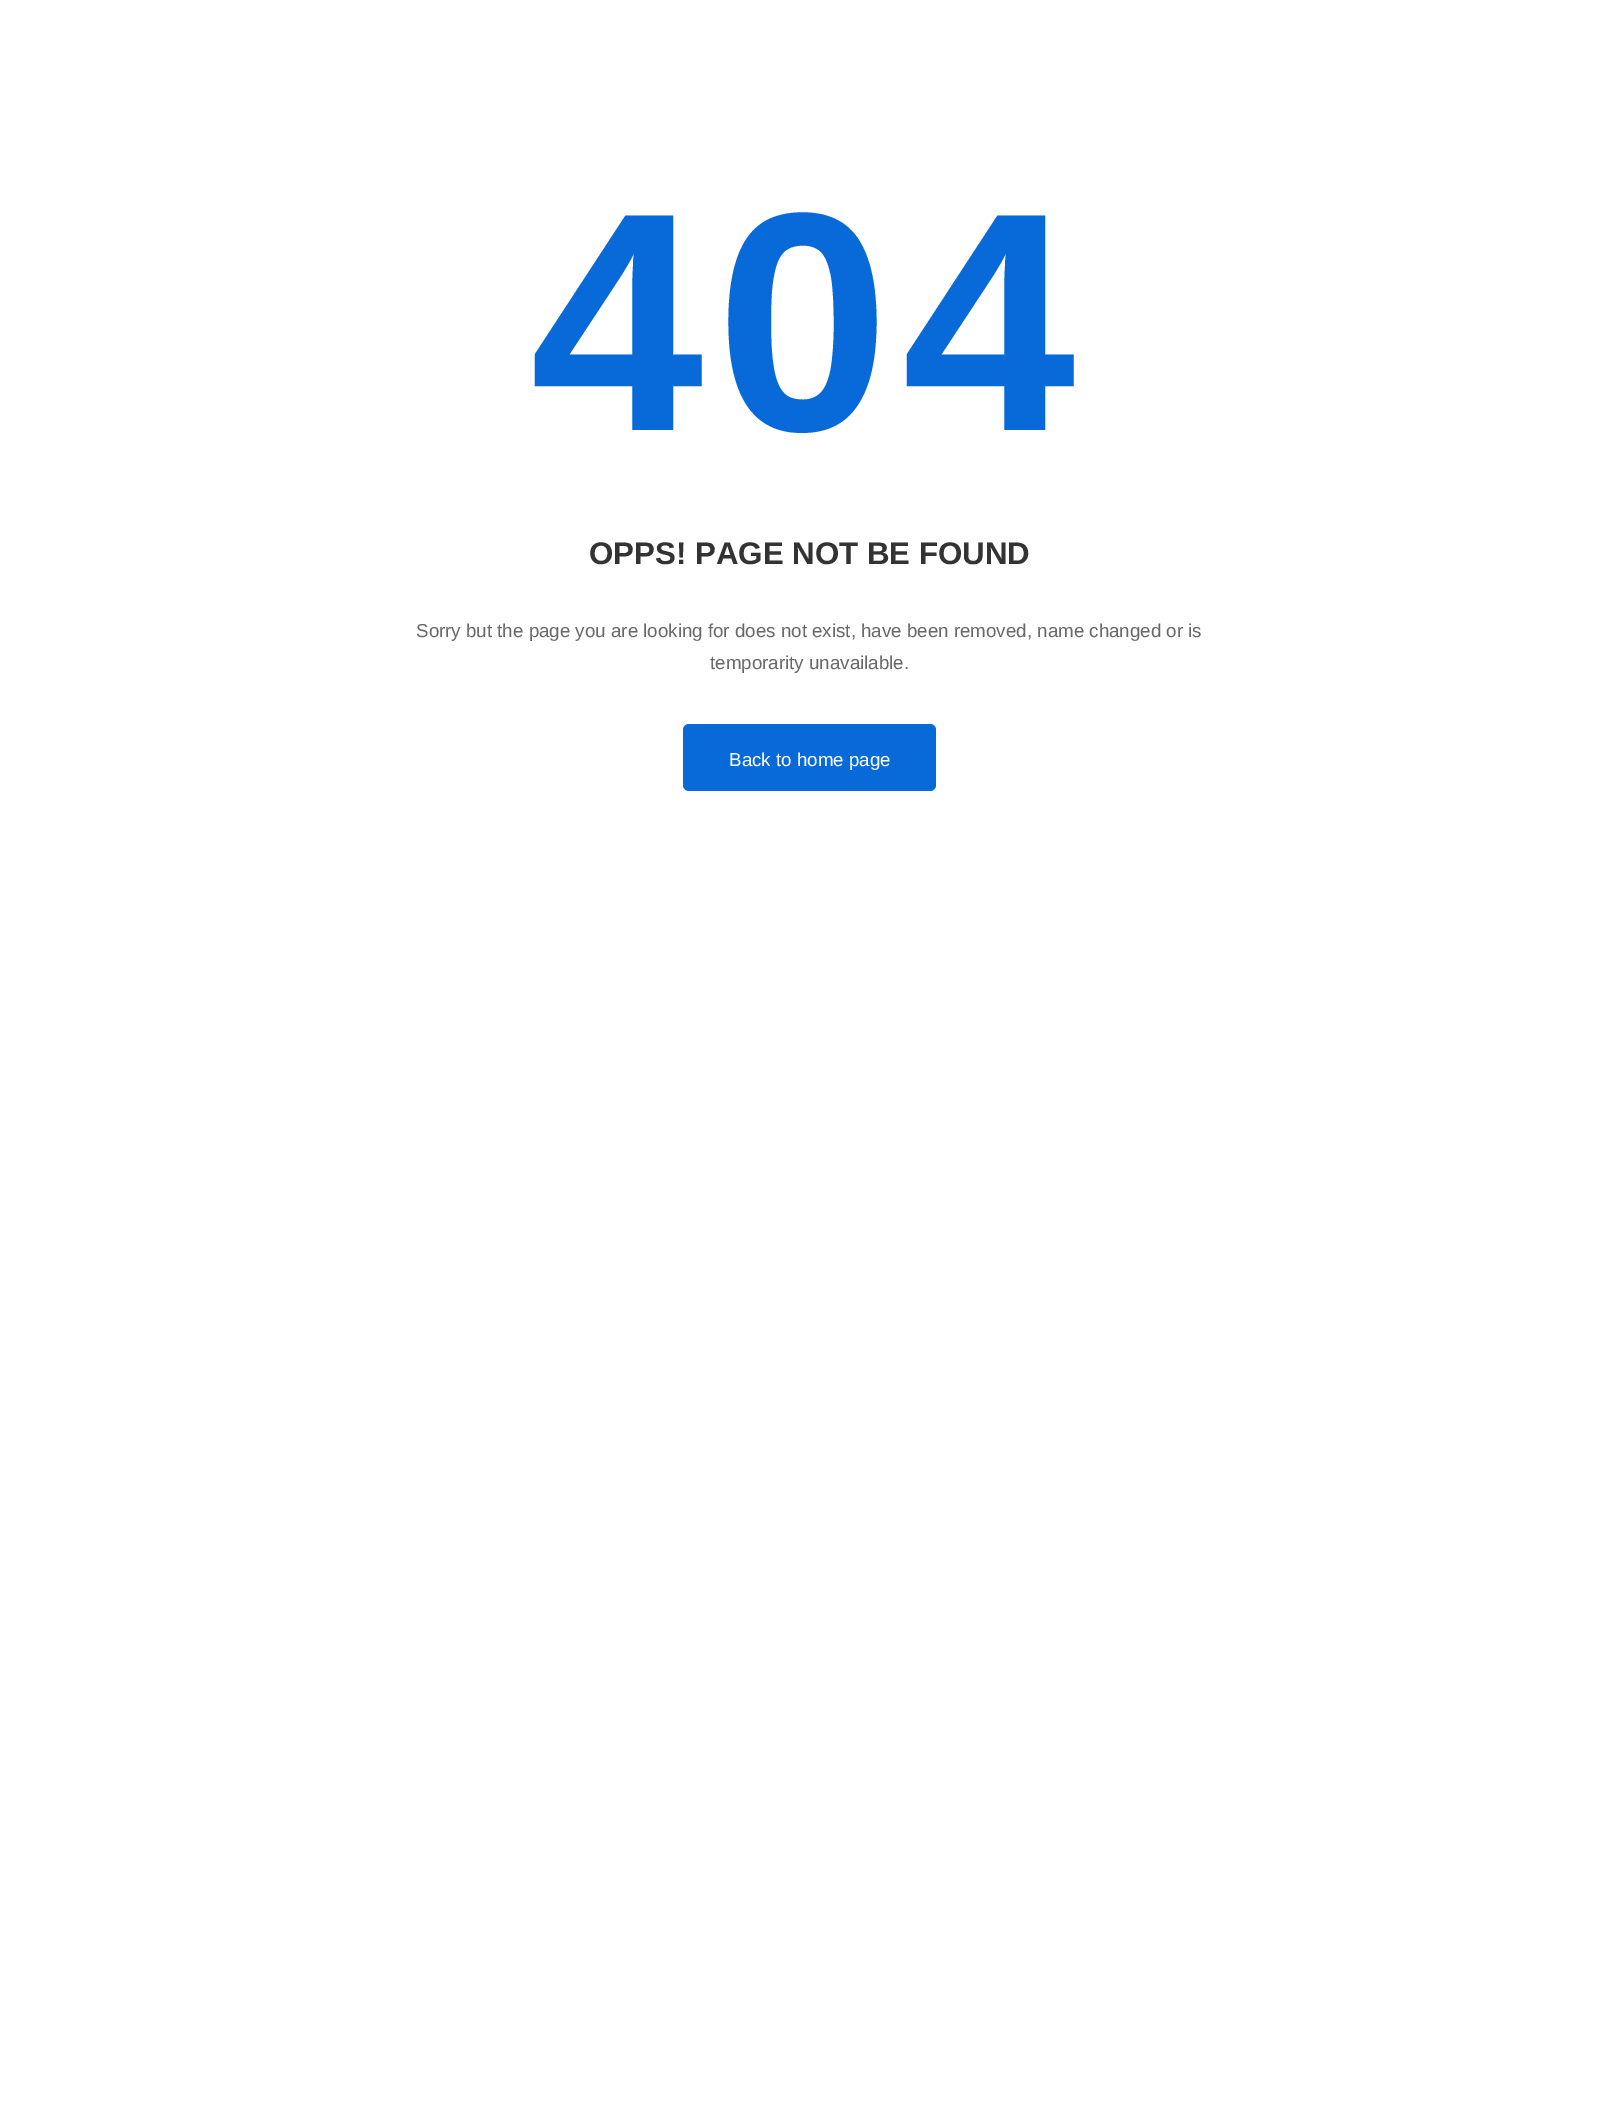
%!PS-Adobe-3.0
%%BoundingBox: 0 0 1618 2113
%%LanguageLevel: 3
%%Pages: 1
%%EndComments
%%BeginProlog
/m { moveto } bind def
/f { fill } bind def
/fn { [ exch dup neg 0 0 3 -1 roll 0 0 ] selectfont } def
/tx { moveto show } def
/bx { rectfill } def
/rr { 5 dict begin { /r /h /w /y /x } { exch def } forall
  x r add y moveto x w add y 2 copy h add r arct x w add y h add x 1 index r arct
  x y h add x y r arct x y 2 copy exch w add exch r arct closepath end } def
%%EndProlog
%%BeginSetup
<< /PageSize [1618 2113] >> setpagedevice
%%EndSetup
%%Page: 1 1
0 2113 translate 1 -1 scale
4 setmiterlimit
1 setgray
0 0 1618 2113 bx
/LiberationSans-Bold 312 fn
0.031 0.416 0.847 setrgbcolor
530 430 m 12.5 0 (404) ashow
/LiberationSans-Bold 31.25 fn
0.2 setgray
(OPPS! PAGE NOT BE FOUND) 589 564 tx
/LiberationSans-Regular 18.75 fn
0.412 setgray
(Sorry but the page you are looking for does not exist, have been removed, name changed or is) 416 637 tx
(temporarity unavailable.) 710 669 tx
0.031 0.416 0.847 setrgbcolor
683 724 253 67 6 rr f
1 setgray
(Back to home page) 729 766 tx
showpage
%%EOF
